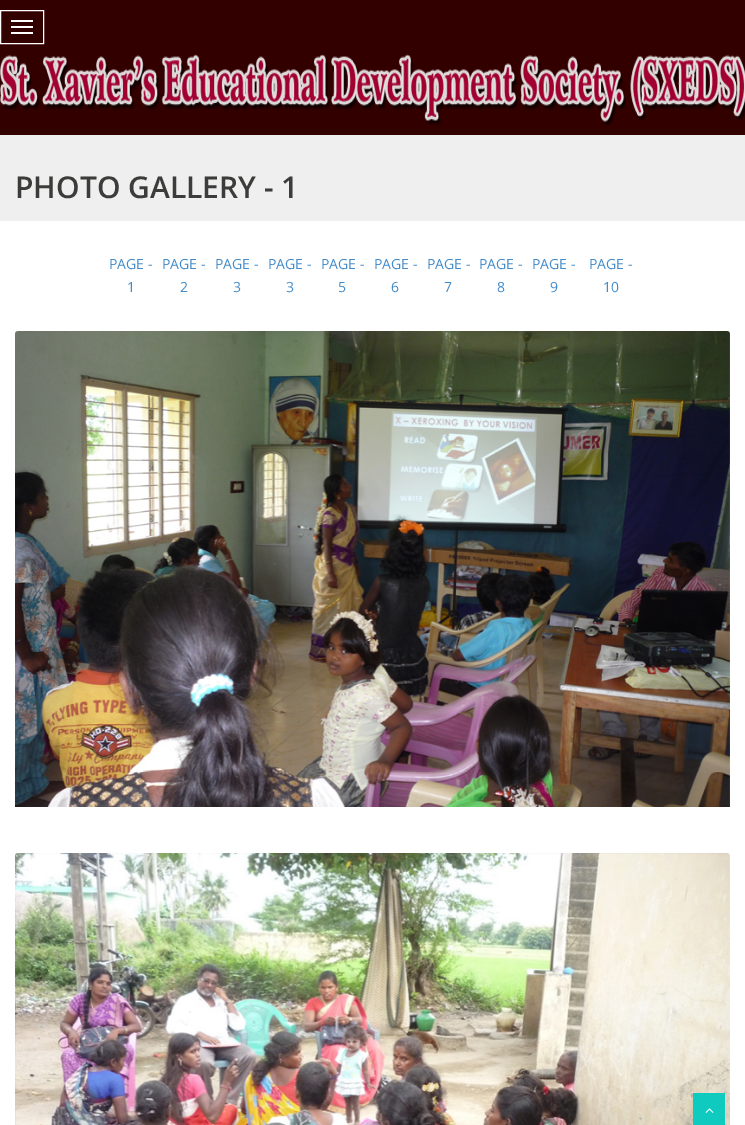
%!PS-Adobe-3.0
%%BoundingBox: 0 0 745 1125
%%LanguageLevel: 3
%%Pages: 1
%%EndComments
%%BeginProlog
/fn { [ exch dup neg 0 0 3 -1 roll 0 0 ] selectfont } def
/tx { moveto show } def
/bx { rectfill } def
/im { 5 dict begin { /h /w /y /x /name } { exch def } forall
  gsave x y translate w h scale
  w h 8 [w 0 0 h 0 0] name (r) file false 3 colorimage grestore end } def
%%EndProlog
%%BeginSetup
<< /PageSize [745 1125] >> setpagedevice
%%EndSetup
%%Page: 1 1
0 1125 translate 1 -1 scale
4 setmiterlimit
1 setgray
0 0 745 1125 bx
0.2 0 0 setrgbcolor
0 0 745 135 bx
1 setgray
0.5 10.5 43 33 rectstroke
11 20 22 2 bx
11 26 22 2 bx
11 32 22 2 bx
(image0.raw) 0 54 745 71 im
0.937 setgray
0 135 745 86 bx
/OpenSans-SemiBold 30 fn
0.235 0.235 0.231 setrgbcolor
(PHOTO GALLERY - 1) 15 198 tx
/OpenSans-Regular 14 fn
0.259 0.545 0.792 setrgbcolor
(PAGE -) 109 269 tx
(1) 127 292 tx
(PAGE -) 162 269 tx
(2) 180 292 tx
(PAGE -) 215 269 tx
(3) 233 292 tx
(PAGE -) 268 269 tx
(3) 286 292 tx
(PAGE -) 321 269 tx
(5) 338 292 tx
(PAGE -) 374 269 tx
(6) 391 292 tx
(PAGE -) 427 269 tx
(7) 444 292 tx
(PAGE -) 479 269 tx
(8) 497 292 tx
(PAGE -) 532 269 tx
(9) 550 292 tx
(PAGE -) 589 269 tx
(10) 603 292 tx
(image1.raw) 15 331 715 476 im
(image2.raw) 15 853 715 272 im
0.059 0.792 0.749 setrgbcolor
693 1093 32 32 bx
(image3.raw) 705 1108 9 5 im
showpage
%%EOF
